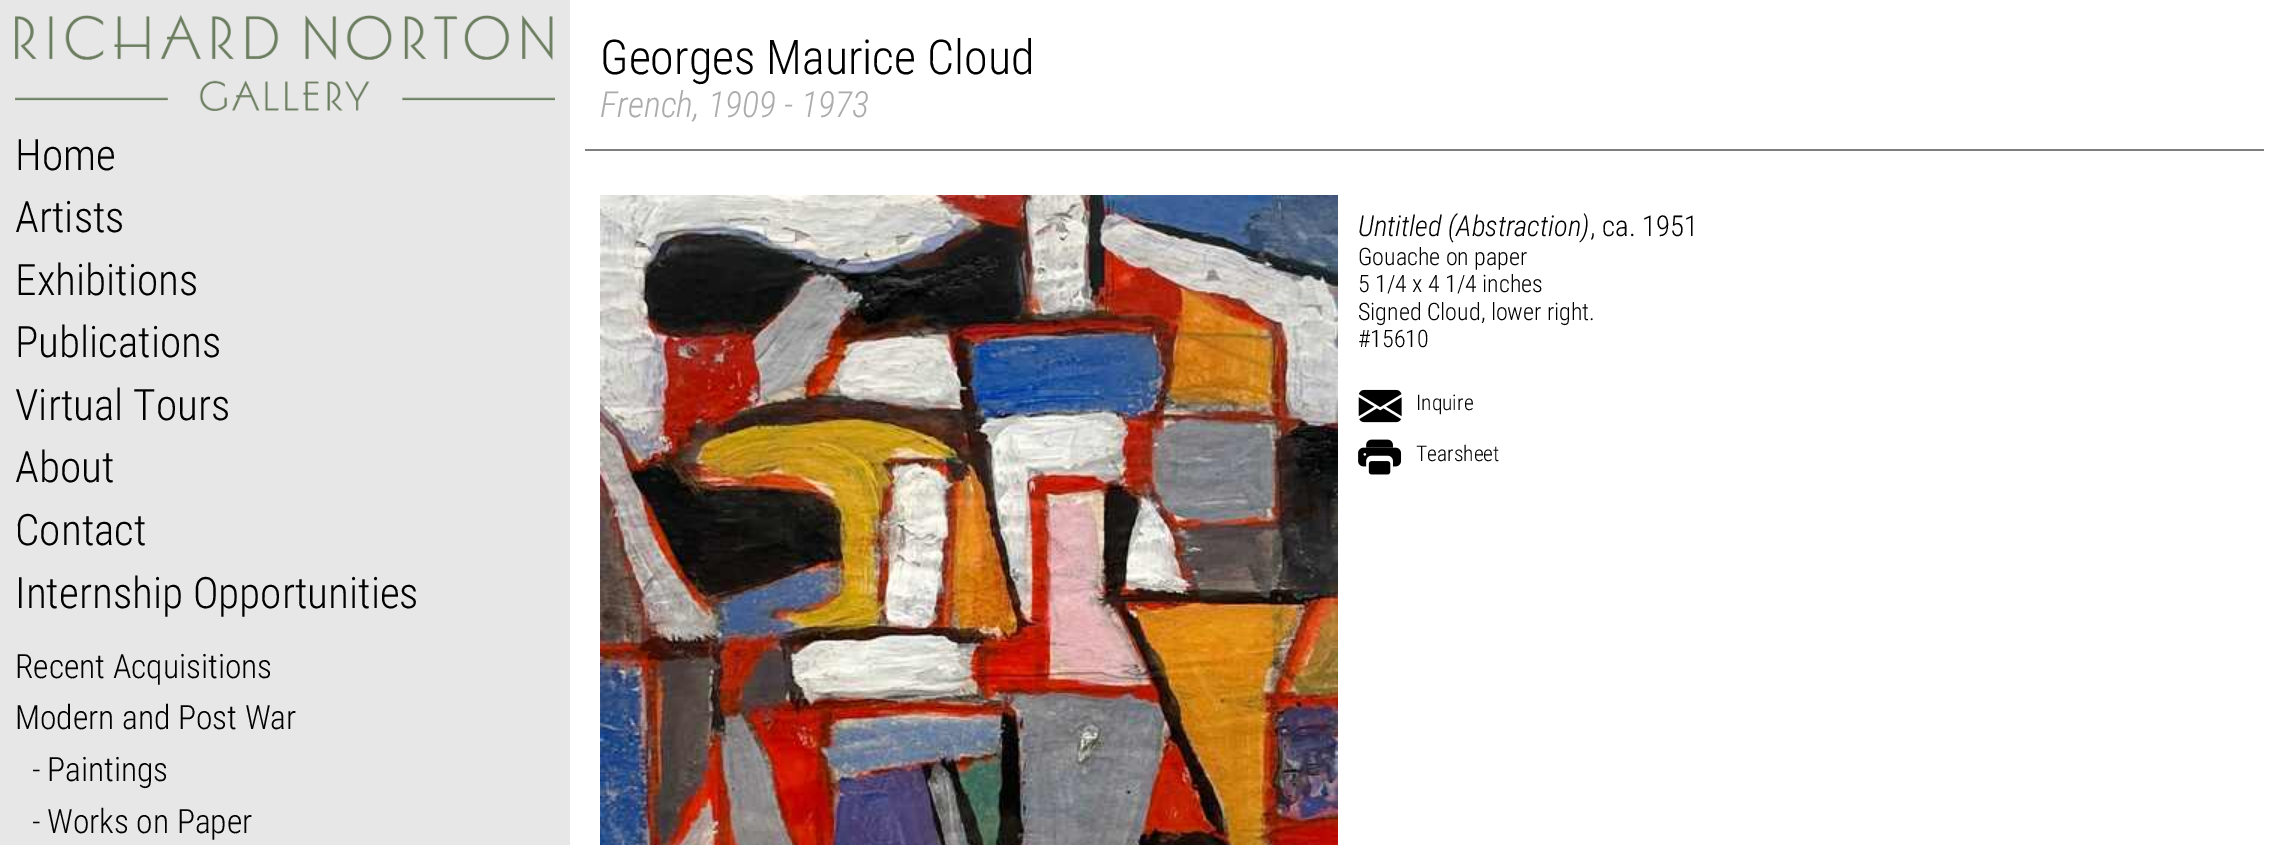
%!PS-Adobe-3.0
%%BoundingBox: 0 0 2278 845
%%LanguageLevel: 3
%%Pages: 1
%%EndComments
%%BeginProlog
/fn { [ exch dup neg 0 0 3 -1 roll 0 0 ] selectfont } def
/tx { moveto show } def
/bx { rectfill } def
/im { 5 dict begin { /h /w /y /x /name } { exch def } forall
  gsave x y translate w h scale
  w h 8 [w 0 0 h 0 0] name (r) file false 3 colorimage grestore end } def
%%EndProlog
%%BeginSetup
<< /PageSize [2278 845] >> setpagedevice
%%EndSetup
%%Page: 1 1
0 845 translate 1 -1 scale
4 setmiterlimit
1 setgray
0 0 2278 845 bx
0.906 setgray
0 0 570 845 bx
(image0.raw) 15 15 540 96 im
/RobotoCondensed-Light 43.25 fn
0 setgray
(Home) 15 170 tx
(Artists) 15 232 tx
(Exhibitions) 15 295 tx
(Publications) 15 357 tx
(Virtual Tours) 15 420 tx
(About) 15 482 tx
(Contact) 15 545 tx
(Internship Opportunities) 15 608 tx
/RobotoCondensed-Light 33.5 fn
(Recent Acquisitions) 15 678 tx
(Modern and Post War) 15 729 tx
(-) 32 781 tx
(Paintings) 47 781 tx
(-) 32 833 tx
(Works on Paper) 47 833 tx
/RobotoCondensed-Light 48 fn
(Georges Maurice Cloud) 600 74 tx
/RobotoCondensed-LightItalic 36 fn
0.671 setgray
(French, 1909 - 1973) 600 117 tx
0.498 setgray
585 149 1679 2 bx
(image1.raw) 600 195 738 650 im
/RobotoCondensed-LightItalic 28.75 fn
0 setgray
(Untitled \(Abstraction\)) 1358 236 tx
/RobotoCondensed-Light 28.75 fn
(, ca. 1951) 1590 236 tx
/RobotoCondensed-Light 24 fn
(Gouache on paper) 1358 265 tx
(5 1/4 x 4 1/4 inches) 1358 292 tx
(Signed Cloud, lower right.) 1358 320 tx
(#15610) 1358 347 tx
(image2.raw) 1358 389 44 34 im
/RobotoCondensed-Light 21.5 fn
(Inquire) 1416 410 tx
(image3.raw) 1358 439 44 36 im
(Tearsheet) 1416 461 tx
showpage
%%EOF
